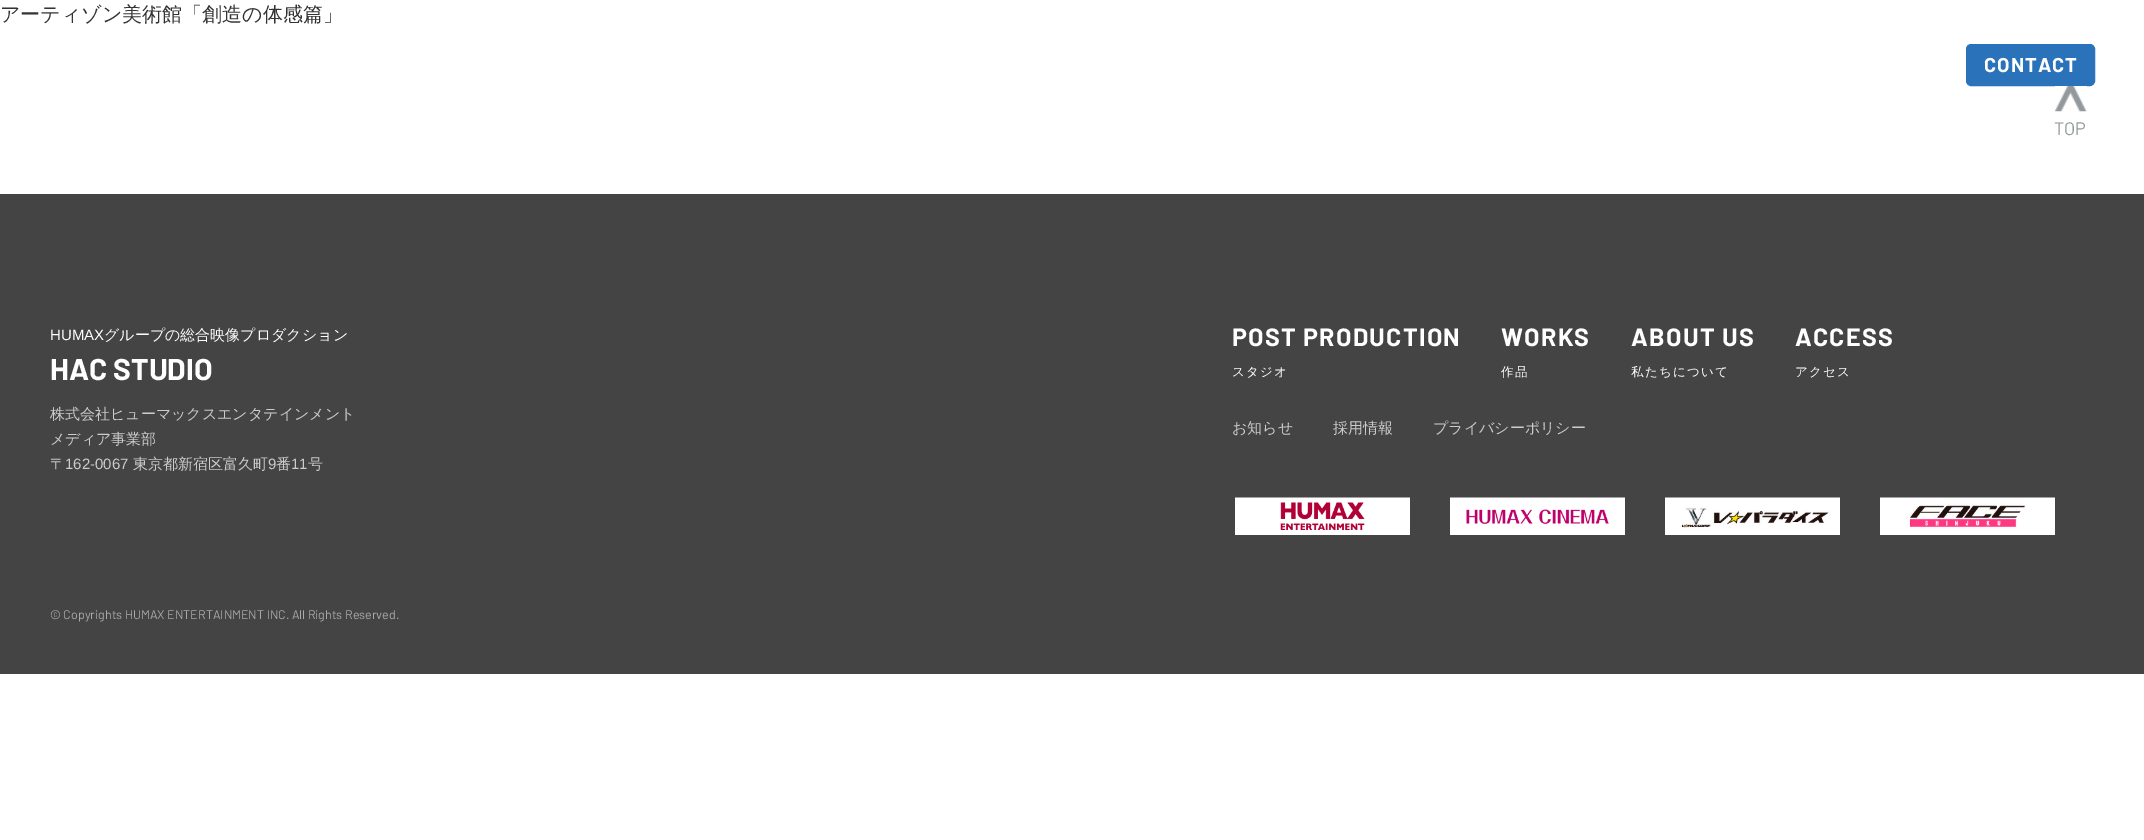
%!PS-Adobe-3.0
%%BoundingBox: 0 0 2144 840
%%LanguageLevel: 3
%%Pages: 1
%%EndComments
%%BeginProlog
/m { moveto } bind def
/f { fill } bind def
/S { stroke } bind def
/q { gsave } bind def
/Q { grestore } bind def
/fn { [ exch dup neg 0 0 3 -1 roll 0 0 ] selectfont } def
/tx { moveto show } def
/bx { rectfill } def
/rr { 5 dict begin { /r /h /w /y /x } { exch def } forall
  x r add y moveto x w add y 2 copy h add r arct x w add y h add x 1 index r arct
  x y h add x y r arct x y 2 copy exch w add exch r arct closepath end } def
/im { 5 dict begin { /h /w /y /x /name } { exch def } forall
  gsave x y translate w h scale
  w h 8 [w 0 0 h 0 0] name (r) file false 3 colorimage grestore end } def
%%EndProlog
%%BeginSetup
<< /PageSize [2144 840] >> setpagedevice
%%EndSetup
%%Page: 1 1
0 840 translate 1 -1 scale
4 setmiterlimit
1 setgray
0 0 2144 840 bx
/WenQuanYiZenHei-Medium 20 fn
0.2 setgray
(アーティゾン美術館「創造の体感篇」) 0 21 tx
0.165 0.447 0.725 setrgbcolor
1966.5 44.5 128 41 4.5 rr q f Q
S
/Barlow-Bold 20 fn
1 setgray
1984 72 m 1 0 (CONTACT) ashow
(image0.raw) 2055 86 32 26 im
/Barlow-Regular 18 fn
0.573 0.596 0.608 setrgbcolor
(TOP) 2054 135 tx
0.267 setgray
0 194 2144 480 bx
/LiberationSans-Regular 15 fn
1 setgray
(HUMAX) 50 340 tx
/WenQuanYiZenHei-Medium 15 fn
(グループの総合映像プロダクション) 104 340 tx
/Barlow-Bold 30 fn
(HAC STUDIO) 50 380 tx
/WenQuanYiZenHei-Medium 15 fn
0.8 setgray
(株式会社ヒューマックスエンタテインメント) 50 419 tx
(メディア事業部) 50 444 tx
(〒) 50 469 tx
/LiberationSans-Regular 15 fn
(162-0067) 65 469 tx
/WenQuanYiZenHei-Medium 15 fn
(東京都新宿区富久町) 133 469 tx
/LiberationSans-Regular 15 fn
(9) 268 469 tx
/WenQuanYiZenHei-Medium 15 fn
(番) 276 469 tx
/LiberationSans-Regular 15 fn
(11) 291 469 tx
/WenQuanYiZenHei-Medium 15 fn
(号) 308 469 tx
/Barlow-Bold 25 fn
1 setgray
1232 346 m 1.25 0 (POST PRODUCTION) ashow
/WenQuanYiZenHei-Medium 12.5 fn
1232 376 m 1.25 0 (スタジオ) ashow
/Barlow-Bold 25 fn
1501 346 m 1.25 0 (WORKS) ashow
/WenQuanYiZenHei-Medium 12.5 fn
1501 376 m 1.25 0 (作品) ashow
/Barlow-Bold 25 fn
1631 346 m 1.25 0 (ABOUT US) ashow
/WenQuanYiZenHei-Medium 12.5 fn
1631 376 m 1.25 0 (私たちについて) ashow
/Barlow-Bold 25 fn
1795 346 m 1.25 0 (ACCESS) ashow
/WenQuanYiZenHei-Medium 12.5 fn
1795 376 m 1.25 0 (アクセス) ashow
/WenQuanYiZenHei-Medium 15 fn
0.8 setgray
(お知らせ) 1232 433 tx
(採用情報) 1333 433 tx
(プライバシーポリシー) 1433 433 tx
(image1.raw) 1235 497 175 38 im
(image2.raw) 1450 497 175 38 im
(image3.raw) 1665 497 175 38 im
(image4.raw) 1880 497 175 38 im
/Barlow-Regular 12.5 fn
0.667 setgray
(© Copyrights HUMAX ENTERTAINMENT INC. All Rights Reserved.) 50 619 tx
showpage
%%EOF
